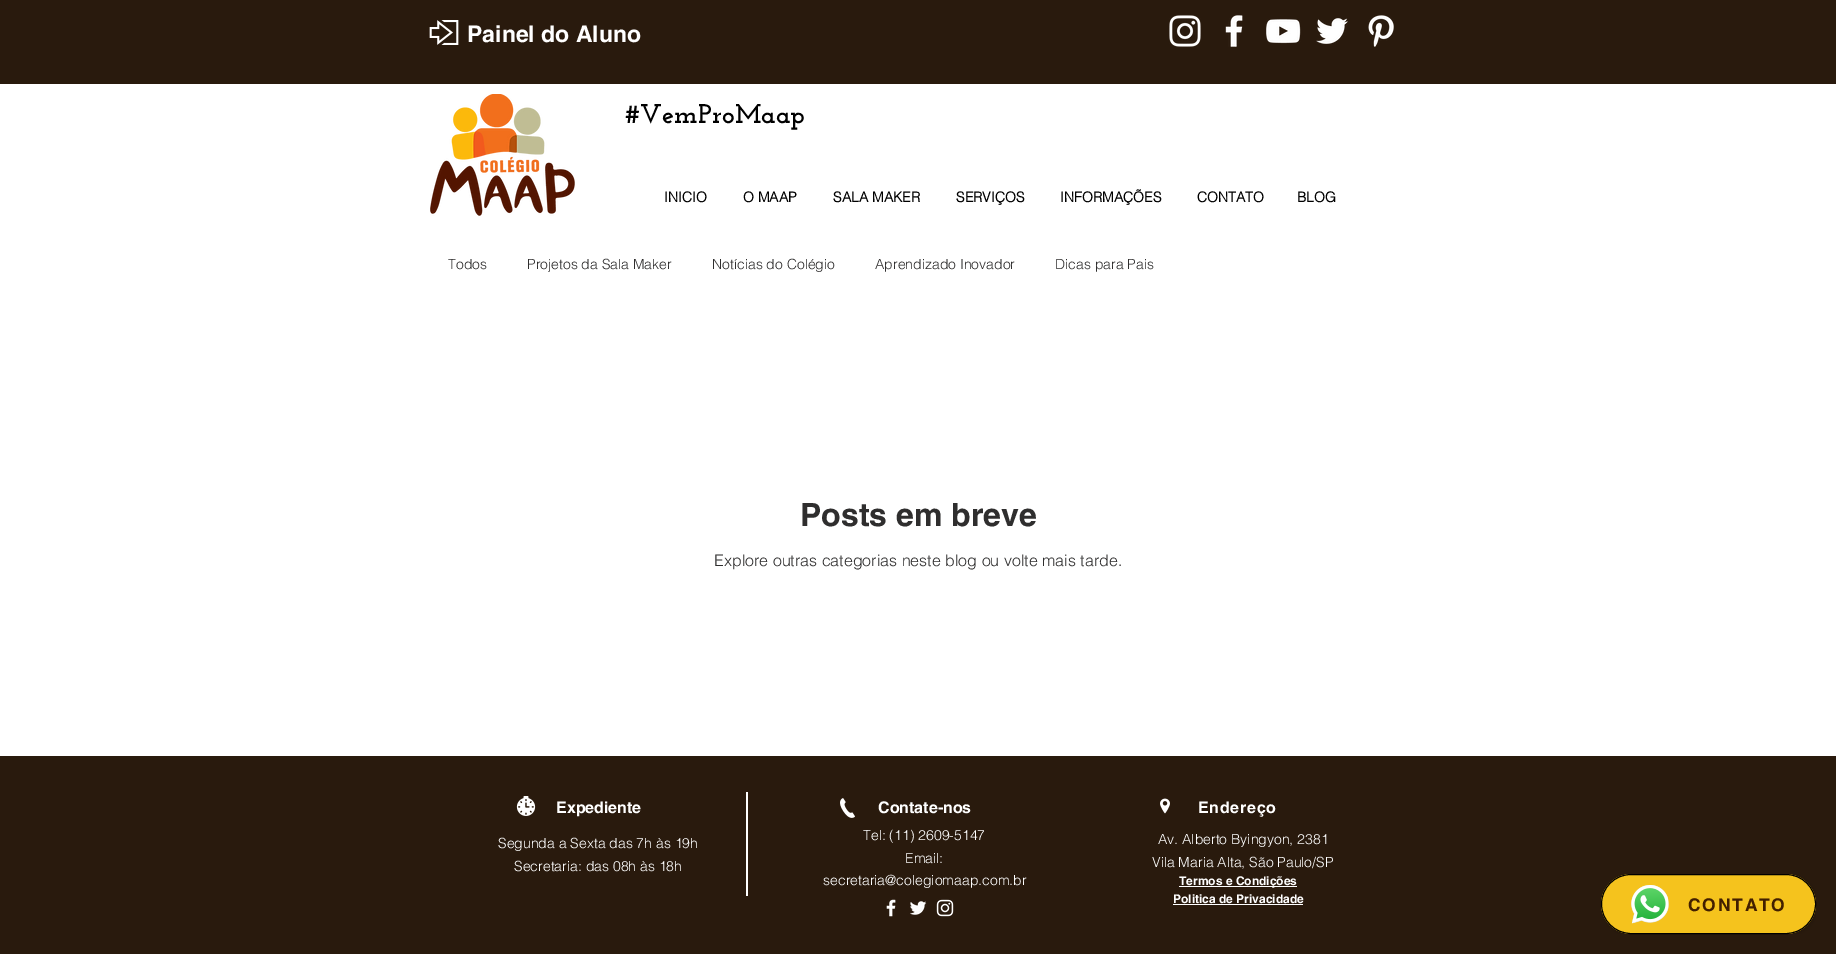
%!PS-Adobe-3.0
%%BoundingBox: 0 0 1836 954
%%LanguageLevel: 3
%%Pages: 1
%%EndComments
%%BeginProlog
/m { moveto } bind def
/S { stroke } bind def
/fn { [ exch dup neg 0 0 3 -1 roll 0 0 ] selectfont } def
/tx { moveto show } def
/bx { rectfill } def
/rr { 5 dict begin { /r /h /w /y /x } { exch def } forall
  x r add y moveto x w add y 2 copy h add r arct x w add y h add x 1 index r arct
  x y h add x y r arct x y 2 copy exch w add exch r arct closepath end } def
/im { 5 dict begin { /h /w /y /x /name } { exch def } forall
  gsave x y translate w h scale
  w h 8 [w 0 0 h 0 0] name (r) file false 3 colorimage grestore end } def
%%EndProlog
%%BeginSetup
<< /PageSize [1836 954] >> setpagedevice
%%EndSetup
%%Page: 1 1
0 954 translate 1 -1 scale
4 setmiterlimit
1 setgray
0 0 1836 954 bx
0.161 0.102 0.051 setrgbcolor
0 0 1836 84 bx
(image0.raw) 429 20 30 25 im
/helvetica-Bold 23 fn
1 setgray
(Painel do Aluno) 467 42 tx
(image1.raw) 1169 15 32 32 im
(image2.raw) 1225 15 18 32 im
(image3.raw) 1266 19 35 25 im
(image4.raw) 1316 18 32 26 im
(image5.raw) 1368 15 26 32 im
(image6.raw) 430 94 145 122 im
/JosefinSlab-Bold 27 fn
0 setgray
(#VemProMaap) 625 123 tx
/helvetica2-Bold 14 fn
(INICIO) 664 202 tx
(O MAAP) 743 202 tx
(SALA MAKER) 833 202 tx
(SERVIÇOS) 956 202 tx
(INFORMAÇÕES) 1060 202 tx
(CONTATO) 1197 202 tx
(BLOG) 1297 202 tx
/helvetica-Light 14 fn
0.184 0.18 0.18 setrgbcolor
(Todos) 448 269 tx
(Projetos da Sala Maker) 527 269 tx
(Notícias do Colégio) 712 269 tx
(Aprendizado Inovador) 875 269 tx
(Dicas para Pais) 1055 269 tx
/helvetica-Bold 32 fn
(Posts em breve) 800 526 tx
/helvetica-Light 16 fn
(Explore outras categorias neste blog ou volte mais tarde.) 714 566 tx
0.161 0.102 0.051 setrgbcolor
0 756 1836 198 bx
(image7.raw) 516 796 20 20 im
/helvetica-Bold 16 fn
1 setgray
(Expediente) 556 813 tx
746 792 2 104 bx
(image8.raw) 840 798 15 20 im
(Contate-nos) 878 813 tx
(image9.raw) 1160 798 10 16 im
1198 813 m 0.75 0 (Endereço) ashow
/helvetica-Light 14 fn
(Segunda a Sexta das 7h às 19h) 498 848 tx
(Secretaria: das 08h às 18h) 514 871 tx
(Tel: \(11\) 2609-5147) 863 840 tx
(Email:) 905 863 tx
(secretaria@colegiomaap.com.br) 823 885 tx
(Av. Alberto Byingyon, 2381) 1158 844 tx
(Vila Maria Alta, São Paulo/SP) 1152 867 tx
1179 886 118 1 bx
/helvetica-Bold 12 fn
(Termos e Condições) 1179 885 tx
(image10.raw) 886 899 10 18 im
(image11.raw) 910 901 17 14 im
(image12.raw) 936 899 18 18 im
(Politica de Privacidade) 1173 903 tx
1173 904 130 1 bx
(image13.raw) 1601 874 215 60 im
0 setgray
1601.5 874.5 214 59 29.5 rr S
(image14.raw) 1631 885 38 39 im
/helvetica-Bold 17.5 fn
0.259 0.122 0 setrgbcolor
1688 911 m 1.75 0 (CONTATO) ashow
showpage
%%EOF
